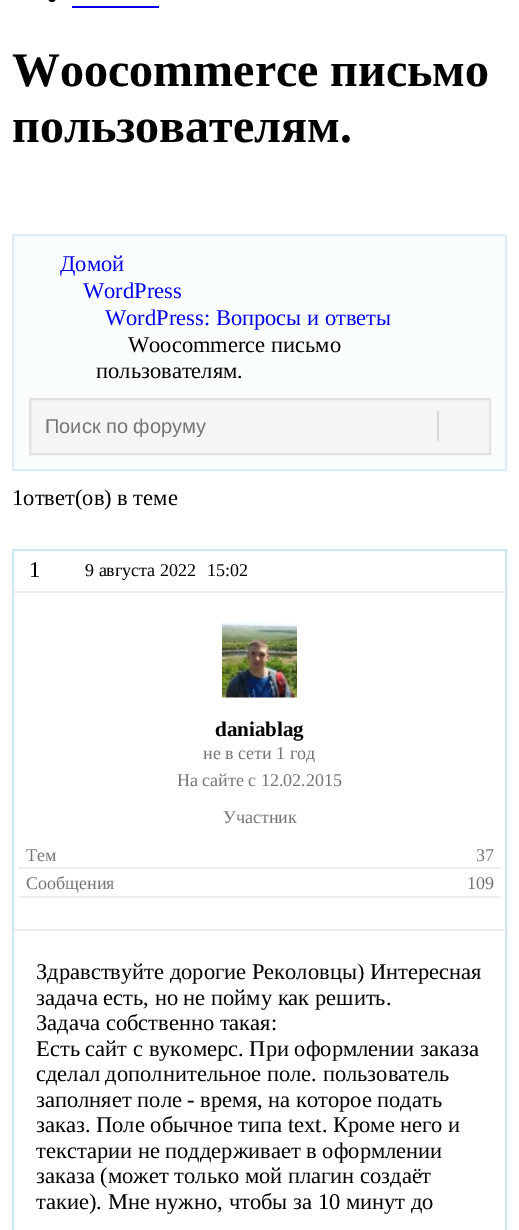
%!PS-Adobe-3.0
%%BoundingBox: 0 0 519 1230
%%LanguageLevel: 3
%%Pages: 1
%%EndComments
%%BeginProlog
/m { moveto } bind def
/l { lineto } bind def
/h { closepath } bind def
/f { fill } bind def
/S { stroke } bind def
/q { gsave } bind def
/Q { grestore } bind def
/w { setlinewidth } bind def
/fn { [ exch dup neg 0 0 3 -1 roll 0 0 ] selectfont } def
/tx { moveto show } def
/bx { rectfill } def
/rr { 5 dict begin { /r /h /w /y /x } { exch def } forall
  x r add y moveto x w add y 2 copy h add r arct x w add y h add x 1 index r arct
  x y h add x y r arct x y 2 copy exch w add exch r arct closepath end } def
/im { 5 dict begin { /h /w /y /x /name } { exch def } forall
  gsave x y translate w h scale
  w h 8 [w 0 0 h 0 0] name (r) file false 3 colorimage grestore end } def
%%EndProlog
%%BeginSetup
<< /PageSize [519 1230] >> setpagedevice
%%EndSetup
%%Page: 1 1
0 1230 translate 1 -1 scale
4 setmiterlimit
1 setgray
0 0 519 1230 bx
0 setgray
48 -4 8 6 4 rr f
0 0 0.933 setrgbcolor
72 6 87 2 bx
/LiberationSerif-Bold 48 fn
0 setgray
(Woocommerce письмо) 12 86 tx
(пользователям.) 12 142 tx
0.98 0.992 0.996 setrgbcolor
13 235 m 506 235 l 506 470 l 13 470 l h q f Q
0.863 0.933 0.957 setrgbcolor
2 w
S
/LiberationSerif-Regular 22.5 fn
0 0 0.933 setrgbcolor
(Домой) 60 271 tx
(WordPress) 83 298 tx
(WordPress: Вопросы и ответы) 105 325 tx
0 setgray
(Woocommerce письмо) 128 352 tx
(пользователям.) 96 378 tx
0.961 setgray
30 399 m 490 399 l 490 454 l 30 454 l h q f Q
0.886 setgray
S
q
30 414 459 23 rectclip
/LiberationSans-Regular 20 fn
0.459 setgray
(Поиск по форуму) 45 433 tx
Q
0.847 setgray
437 411 2 30 bx
0 setgray
(1ответ\(ов\) в теме) 12 505 tx
0.816 0.906 0.941 setrgbcolor
13 550 493 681 rectstroke
0.933 setgray
14 591 492 2 bx
0 setgray
(1) 29 577 tx
/LiberationSerif-Regular 18 fn
(9 августа 2022) 85 576 tx
(15:02) 207 576 tx
/LiberationSerif-Regular 22.5 fn
(Здравствуйте дорогие Реколовцы\) Интересная) 36 979 tx
(задача есть, но не пойму как решить.) 36 1005 tx
(Задача собственно такая:) 36 1030 tx
(Есть сайт с вукомерс. При оформлении заказа) 36 1056 tx
(сделал дополнительное поле. пользователь) 36 1081 tx
(заполняет поле - время, на которое подать) 36 1107 tx
(заказ. Поле обычное типа text. Кроме него и) 36 1132 tx
(текстарии не поддерживает в оформлении) 36 1158 tx
(заказа \(может только мой плагин создаёт) 36 1183 tx
(такие\). Мне нужно, чтобы за 10 минут до) 36 1209 tx
0.933 setgray
14 929 492 2 bx
(image0.raw) 222 622 75 76 im
/LiberationSerif-Bold 21 fn
0 setgray
(daniablag) 215 736 tx
/LiberationSerif-Regular 18 fn
0.459 setgray
(не в сети 1 год) 203 759 tx
(На сайте с 12.02.2015) 177 786 tx
(Участник) 223 823 tx
0.933 setgray
18 867 483 2 bx
0.459 setgray
(Тем) 26 861 tx
(37) 476 861 tx
0.933 setgray
18 896 483 2 bx
0.459 setgray
(Сообщения) 26 889 tx
(109) 467 889 tx
showpage
%%EOF
